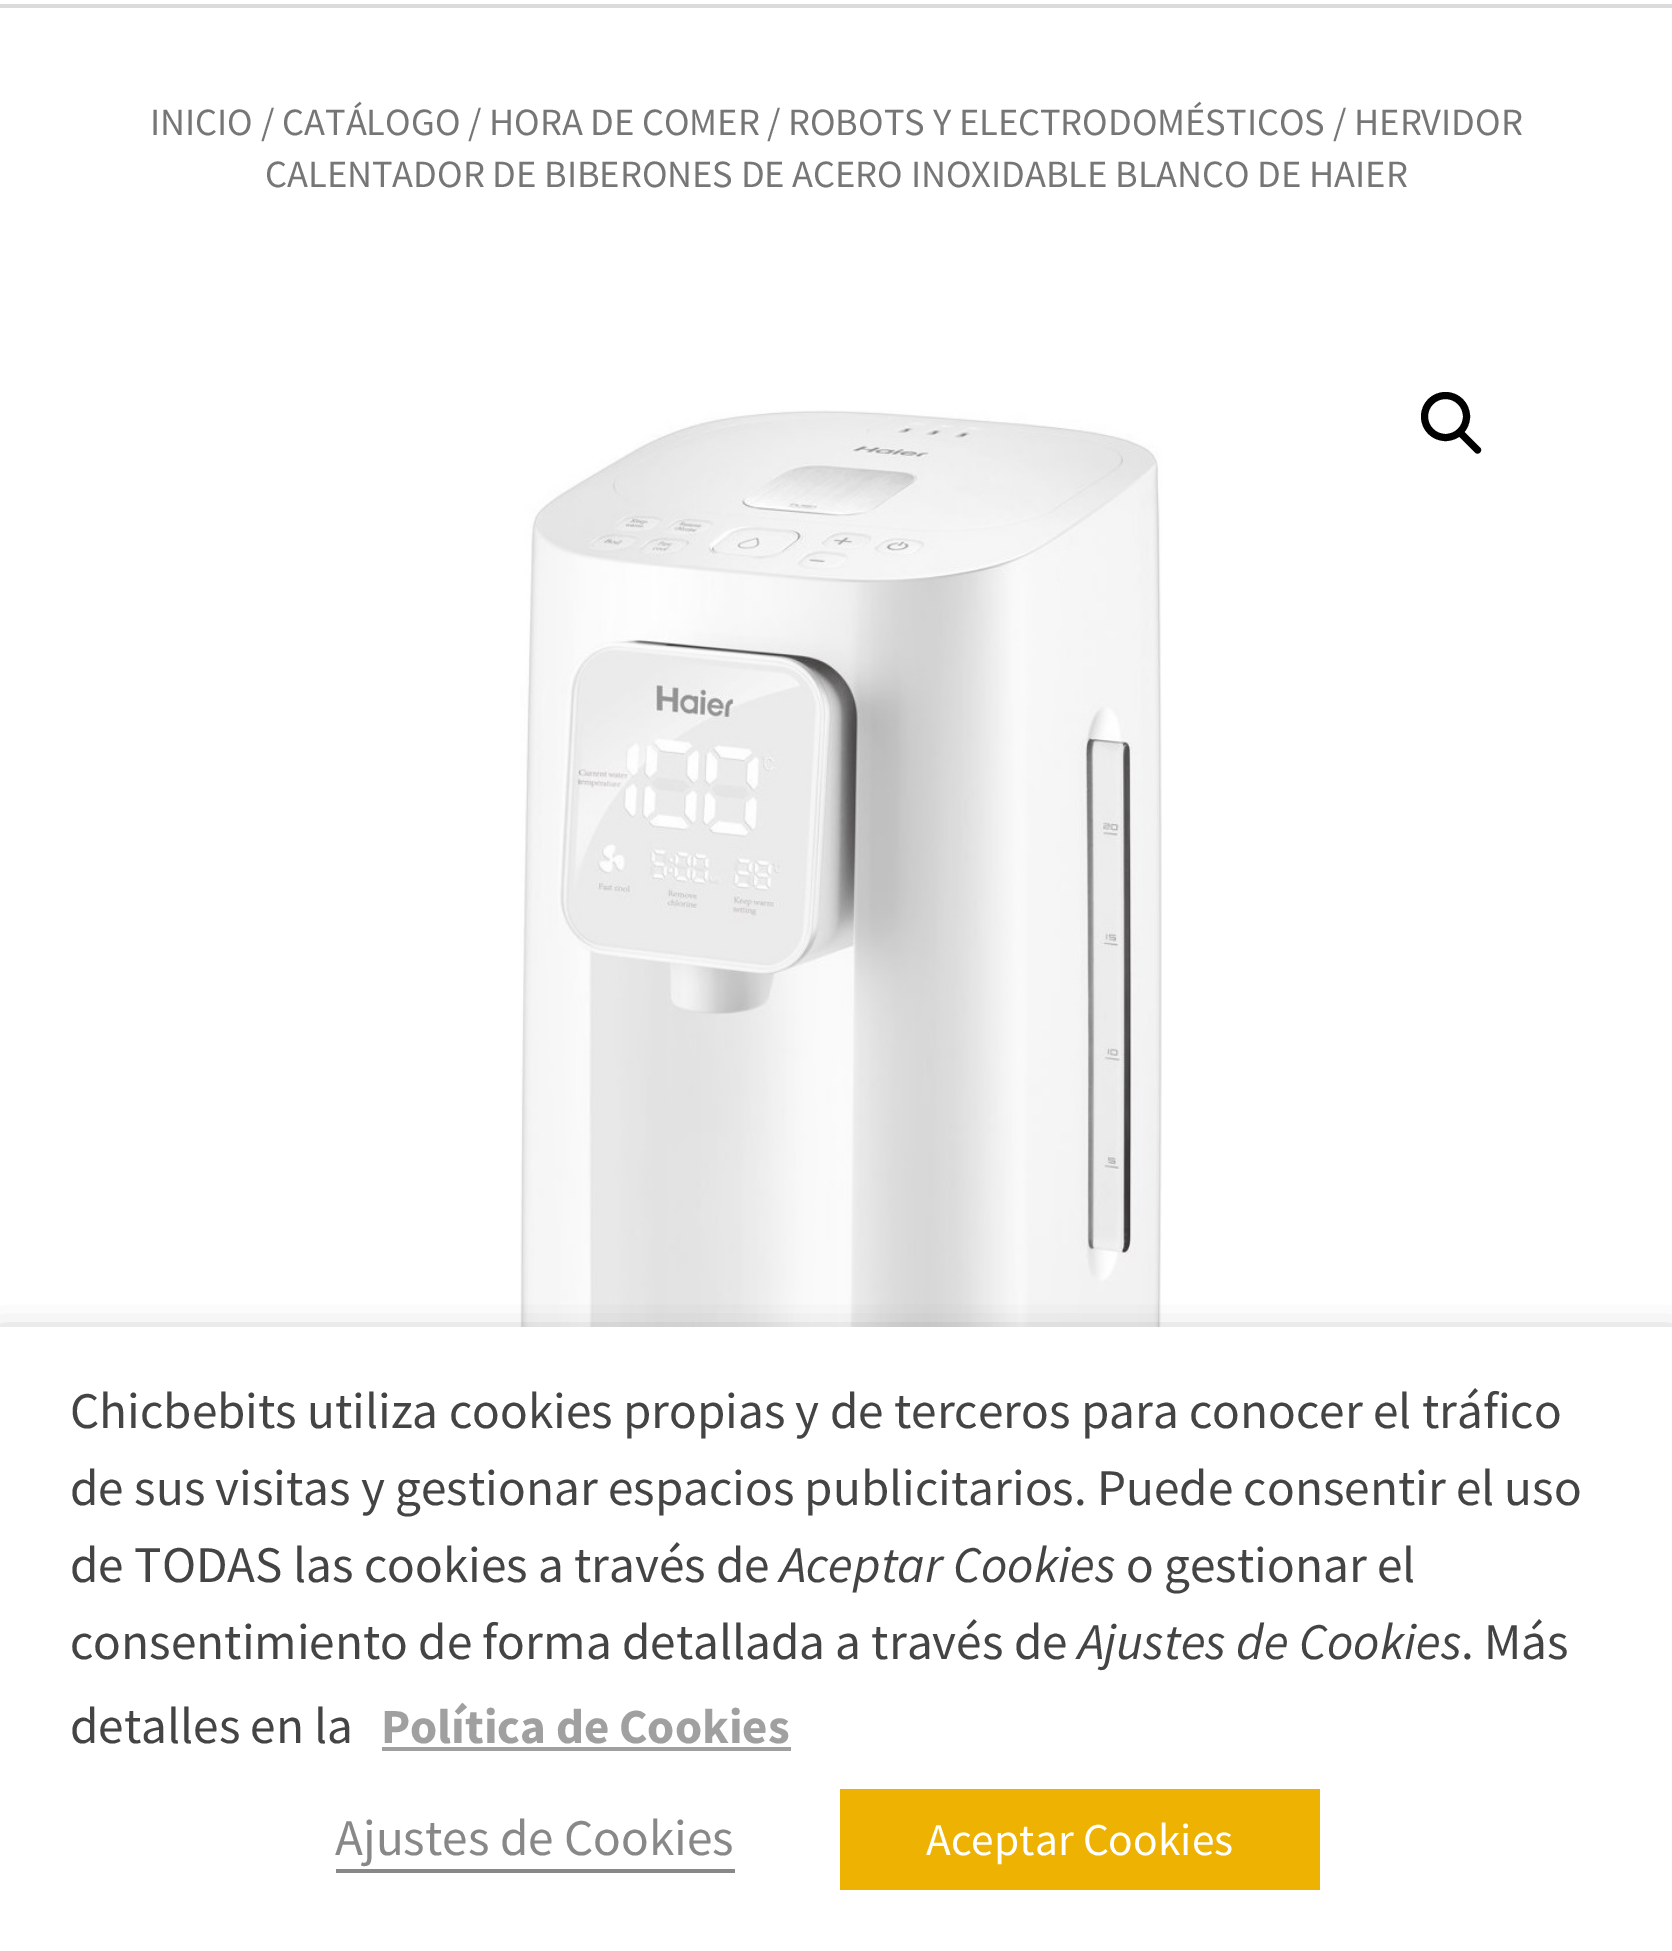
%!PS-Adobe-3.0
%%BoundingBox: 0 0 1672 1951
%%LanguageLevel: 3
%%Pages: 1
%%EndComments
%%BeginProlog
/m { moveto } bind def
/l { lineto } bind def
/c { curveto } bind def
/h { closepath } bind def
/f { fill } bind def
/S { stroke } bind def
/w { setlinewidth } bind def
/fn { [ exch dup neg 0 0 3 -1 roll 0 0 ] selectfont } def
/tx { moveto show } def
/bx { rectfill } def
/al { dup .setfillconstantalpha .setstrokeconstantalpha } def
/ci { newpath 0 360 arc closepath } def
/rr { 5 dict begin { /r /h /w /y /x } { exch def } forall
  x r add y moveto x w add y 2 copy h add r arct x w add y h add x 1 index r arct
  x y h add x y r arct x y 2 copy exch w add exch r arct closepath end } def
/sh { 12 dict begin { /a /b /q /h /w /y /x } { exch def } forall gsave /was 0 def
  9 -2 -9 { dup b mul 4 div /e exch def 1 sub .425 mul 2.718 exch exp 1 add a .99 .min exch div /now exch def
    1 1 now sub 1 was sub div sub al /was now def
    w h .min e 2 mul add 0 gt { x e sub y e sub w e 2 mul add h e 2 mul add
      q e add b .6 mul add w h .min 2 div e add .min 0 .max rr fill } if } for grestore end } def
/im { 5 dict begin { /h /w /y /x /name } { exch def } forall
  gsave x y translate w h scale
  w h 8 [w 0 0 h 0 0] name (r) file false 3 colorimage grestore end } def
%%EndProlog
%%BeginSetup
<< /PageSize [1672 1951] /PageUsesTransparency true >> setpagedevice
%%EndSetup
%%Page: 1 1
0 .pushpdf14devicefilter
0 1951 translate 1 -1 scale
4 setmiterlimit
1 setgray
0 0 1672 1951 bx
0.859 setgray
0 4 1672 4 bx
/SourceSansPro-Regular 38.5 fn
0.463 setgray
(INICIO) 150 135 tx
(/) 261 135 tx
(CATÁLOGO) 282 135 tx
(/) 468 135 tx
(HORA DE COMER) 489 135 tx
(/) 767 135 tx
(ROBOTS Y ELECTRODOMÉSTICOS) 788 135 tx
(/ HERVIDOR) 1333 135 tx
(CALENTADOR DE BIBERONES DE ACERO INOXIDABLE BLANCO DE HAIER) 265 187 tx
(image0.raw) 520 410 642 917 im
0 setgray
7 w
1445.5 416.5 21 ci S
1460 432.5 m 1461.5 431.5 1463.5 431.5 1465 432.5 c 1480 447.5 l 1481.5 449 1481.5 451 1480 452.5 c 1478.5 454 1476.5 454 1475 452.5 c 1460 437.5 l 1458.5 436.5 1458.5 434 1460 432.5 c h f
0 1344 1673 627 0 17.5 0.5 sh
1 setgray
0 1327 1672 624 bx
/SourceSansPro-Regular 51.3 fn
0.267 setgray
(Chicbebits utiliza cookies propias y de terceros para conocer el tráfico) 70 1428 tx
(de sus visitas y gestionar espacios publicitarios. Puede consentir el uso) 70 1505 tx
(de TODAS las cookies a través de) 70 1582 tx
/SourceSansPro-Italic 51.3 fn
(Aceptar Cookies) 780 1582 tx
/SourceSansPro-Regular 51.3 fn
(o gestionar el) 1126 1582 tx
(consentimiento de forma detallada a través de) 70 1659 tx
/SourceSansPro-Italic 51.3 fn
(Ajustes de Cookies) 1078 1659 tx
/SourceSansPro-Regular 51.3 fn
(. Más) 1461 1659 tx
(detalles en la) 70 1743 tx
/SourceSansPro-Bold 49 fn
0.627 setgray
(Política de Cookies) 381 1743 tx
382 1747 409 4 bx
/SourceSansPro-Regular 51.3 fn
0.537 0.533 0.533 setrgbcolor
(Ajustes de Cookies) 335 1855 tx
336 1869 399 4 bx
0.929 0.698 0.008 setrgbcolor
840 1789 480 101 bx
/SourceSansPro-Regular 45.5 fn
1 setgray
(Aceptar Cookies) 926 1855 tx
.poppdf14devicefilter showpage
%%EOF
